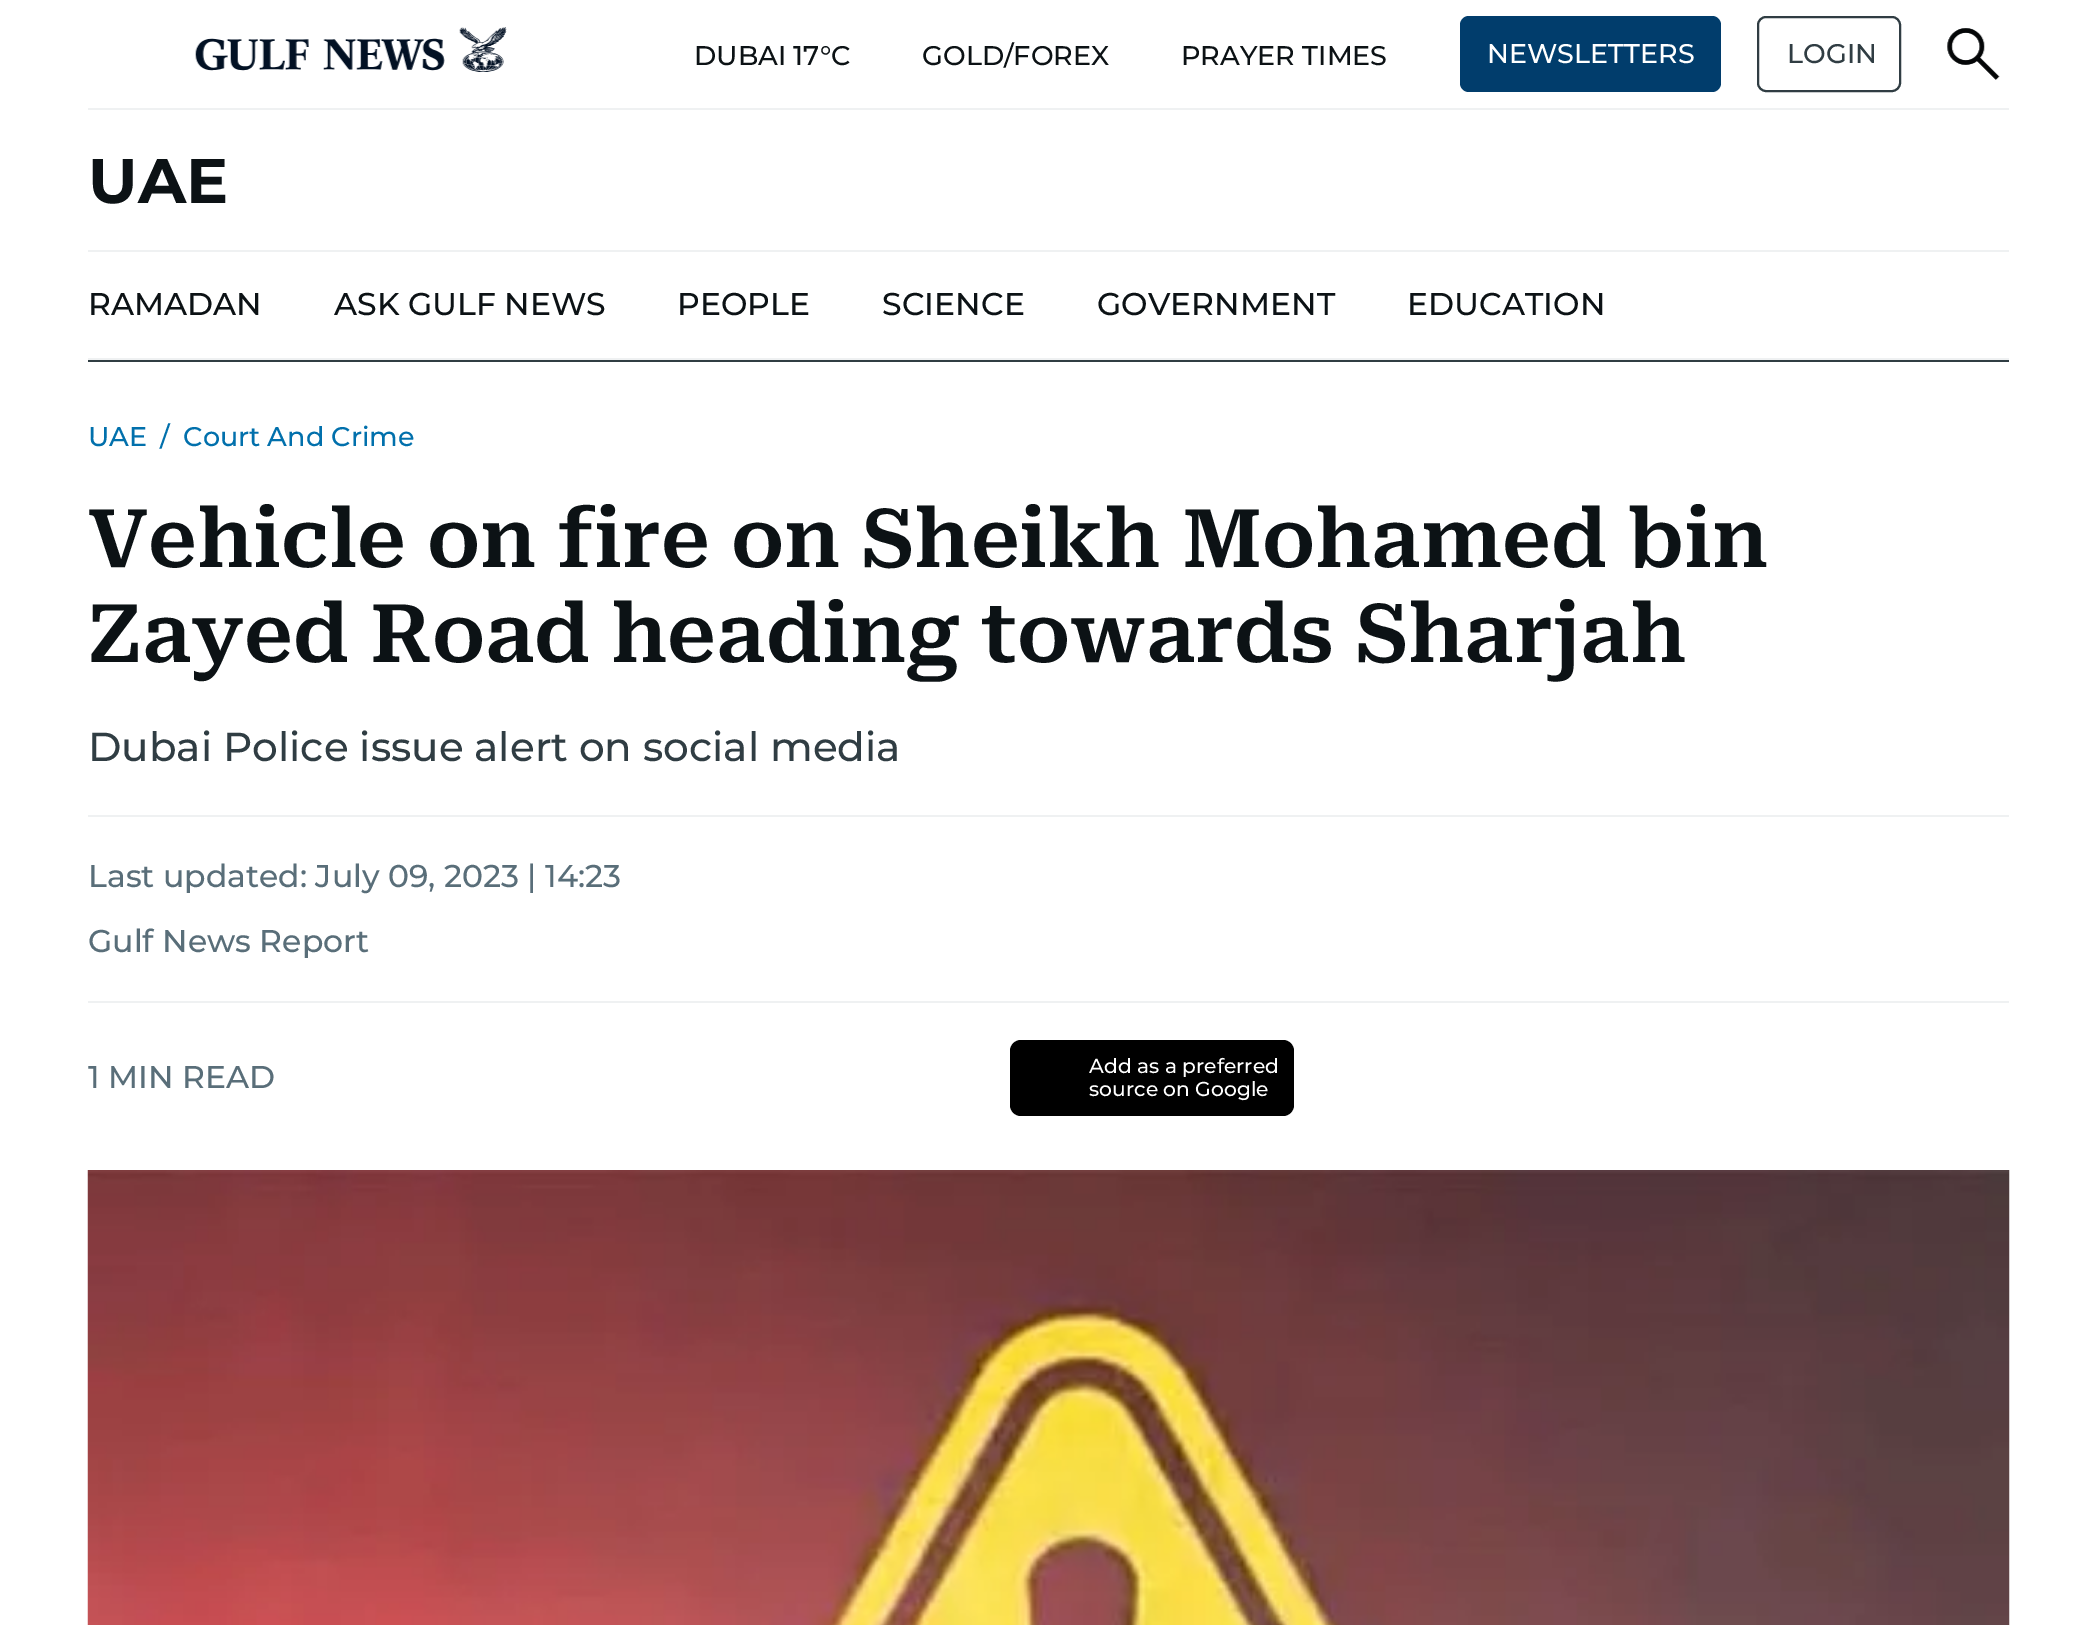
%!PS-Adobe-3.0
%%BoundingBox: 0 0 2095 1625
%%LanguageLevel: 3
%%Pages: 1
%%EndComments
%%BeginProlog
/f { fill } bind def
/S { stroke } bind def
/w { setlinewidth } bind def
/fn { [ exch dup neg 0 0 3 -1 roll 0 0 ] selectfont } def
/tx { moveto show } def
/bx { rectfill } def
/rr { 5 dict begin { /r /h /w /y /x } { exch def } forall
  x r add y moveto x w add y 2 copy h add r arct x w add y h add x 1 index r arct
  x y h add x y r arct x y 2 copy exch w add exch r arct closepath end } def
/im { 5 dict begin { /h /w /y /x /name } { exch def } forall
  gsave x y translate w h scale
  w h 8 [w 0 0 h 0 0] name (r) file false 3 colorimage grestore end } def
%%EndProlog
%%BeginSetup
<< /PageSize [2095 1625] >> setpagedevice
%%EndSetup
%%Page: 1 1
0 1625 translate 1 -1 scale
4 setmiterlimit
1 setgray
0 0 2095 1625 bx
0.937 0.945 0.949 setrgbcolor
88 108 1921 2 bx
(image0.raw) 195 27 312 45 im
/Montserrat-Thin 27 fn
0.047 0.071 0.082 setrgbcolor
(DUBAI 17°C) 694 65 tx
(GOLD/FOREX) 922 65 tx
(PRAYER TIMES) 1181 65 tx
0.004 0.239 0.424 setrgbcolor
1460 16 261 76 9 rr f
1 setgray
(NEWSLETTERS) 1487 63 tx
0.188 0.239 0.263 setrgbcolor
2 w
1758 17 142 74 8 rr S
(LOGIN) 1787 63 tx
(image1.raw) 1947 28 53 52 im
88 360 1921 2 bx
/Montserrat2-Thin 63 fn
0.047 0.071 0.082 setrgbcolor
(UAE) 88 203 tx
0.937 0.945 0.949 setrgbcolor
88 250 1921 2 bx
/Montserrat-Thin 31.5 fn
0.047 0.071 0.082 setrgbcolor
(RAMADAN) 88 315 tx
(ASK GULF NEWS) 334 315 tx
(PEOPLE) 677 315 tx
(SCIENCE) 882 315 tx
(GOVERNMENT) 1097 315 tx
(EDUCATION) 1407 315 tx
0.937 0.945 0.949 setrgbcolor
88 358 1921 2 bx
/Montserrat-Thin 27 fn
0.004 0.439 0.675 setrgbcolor
(UAE) 88 446 tx
(/) 160 446 tx
(Court And Crime) 183 446 tx
/RobotoSerif-SemiBold 81 fn
0.047 0.071 0.082 setrgbcolor
(Vehicle on fire on Sheikh Mohamed bin) 88 567 tx
(Zayed Road heading towards Sharjah) 88 662 tx
0.937 0.945 0.949 setrgbcolor
88 815 1921 2 bx
/Montserrat-Thin 40.5 fn
0.188 0.239 0.263 setrgbcolor
(Dubai Police issue alert on social media) 88 761 tx
/Montserrat-Thin 31.5 fn
0.349 0.431 0.475 setrgbcolor
(Last updated: July 09, 2023 | 14:23) 88 887 tx
(Gulf News Report) 88 952 tx
0.937 0.945 0.949 setrgbcolor
88 1001 1921 2 bx
0.349 0.431 0.475 setrgbcolor
(1 MIN READ) 88 1088 tx
0 setgray
1010 1040 284 76 11 rr f
/Montserrat-Thin 20.25 fn
1 setgray
(Add as a preferred) 1089 1073 tx
(source on Google) 1089 1096 tx
(image2.raw) 87 1170 1923 455 im
showpage
%%EOF
